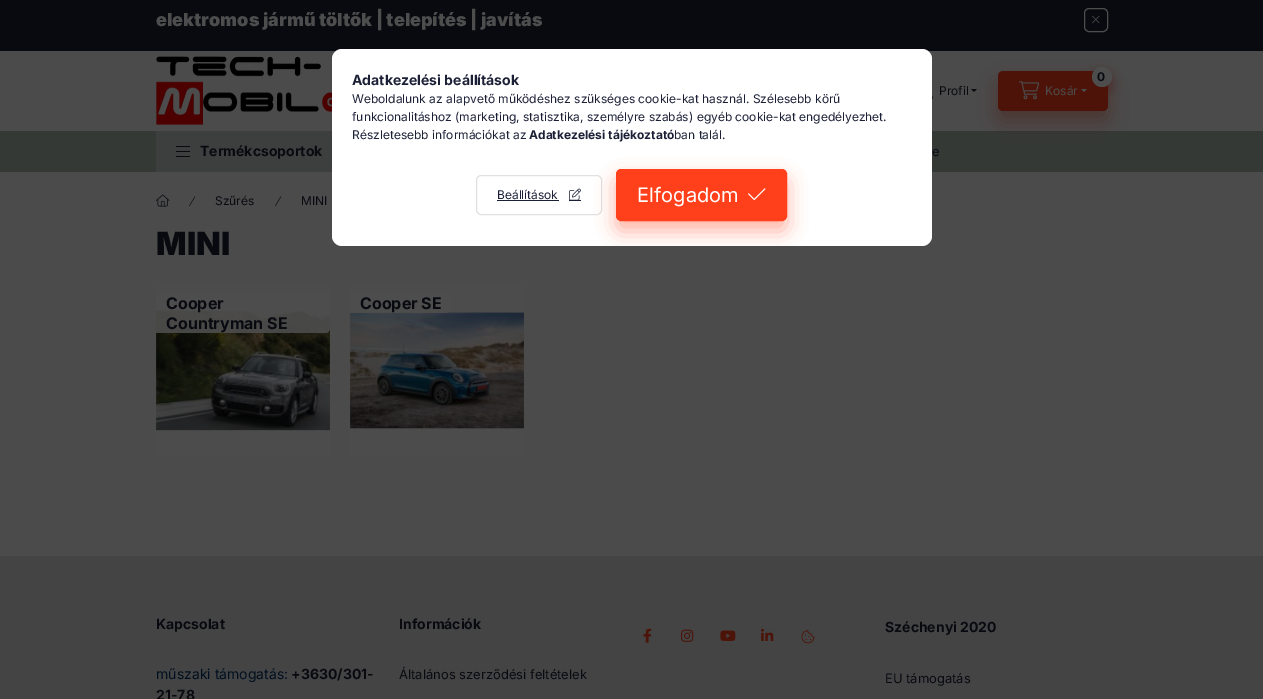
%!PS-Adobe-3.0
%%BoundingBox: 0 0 1263 699
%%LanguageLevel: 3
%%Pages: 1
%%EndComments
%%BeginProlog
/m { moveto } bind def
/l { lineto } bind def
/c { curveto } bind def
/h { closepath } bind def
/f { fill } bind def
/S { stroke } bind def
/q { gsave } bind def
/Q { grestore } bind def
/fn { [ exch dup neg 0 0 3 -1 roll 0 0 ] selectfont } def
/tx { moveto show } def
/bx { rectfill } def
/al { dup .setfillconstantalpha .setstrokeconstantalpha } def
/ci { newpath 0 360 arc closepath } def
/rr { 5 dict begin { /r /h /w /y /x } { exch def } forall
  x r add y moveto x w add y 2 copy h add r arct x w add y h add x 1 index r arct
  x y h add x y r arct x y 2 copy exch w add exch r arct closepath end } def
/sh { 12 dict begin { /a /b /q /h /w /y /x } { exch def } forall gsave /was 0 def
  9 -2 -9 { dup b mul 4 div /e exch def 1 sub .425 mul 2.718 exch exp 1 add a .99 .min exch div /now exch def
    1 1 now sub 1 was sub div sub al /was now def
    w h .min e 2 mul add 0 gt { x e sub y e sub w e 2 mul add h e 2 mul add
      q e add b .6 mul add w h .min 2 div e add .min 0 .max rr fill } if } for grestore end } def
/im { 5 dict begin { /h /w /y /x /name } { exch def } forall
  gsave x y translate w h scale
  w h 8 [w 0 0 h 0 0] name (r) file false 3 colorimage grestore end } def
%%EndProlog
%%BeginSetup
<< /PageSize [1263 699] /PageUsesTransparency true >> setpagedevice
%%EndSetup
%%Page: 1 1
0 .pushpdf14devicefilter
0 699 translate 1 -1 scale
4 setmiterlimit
0.294 setgray
0 0 1263 699 bx
0.208 0.224 0.212 setrgbcolor
0 131 1263 41 bx
0.302 0.075 0.031 setrgbcolor
998 81 110 40 5 10 0.4 sh
0.031 0.039 0.063 setrgbcolor
0 0 1263 51 bx
/Inter-Black 18 fn
0.302 setgray
(elektromos jármű töltők | telepítés | javítás) 156 26 tx
1084.5 8.5 23 23 4.5 rr S
(image0.raw) 1092 15 8 9 im
(image1.raw) 156 56 176 69 im
/Inter-Regular 12 fn
0.031 0.039 0.063 setrgbcolor
(Profil) 939 95 tx
971 89 m 977 89 l 974 92 l h f
(image2.raw) 932 95 1 4 im
0.302 0.075 0.031 setrgbcolor
998 71 110 40 5 rr f
1092 72 20 20 10 5 0.4 sh
0.302 setgray
1102 77 10 ci f
/Inter-Bold 12 fn
0.031 0.039 0.063 setrgbcolor
(0) 1097 81 tx
(image3.raw) 1019 81 21 19 im
/Inter-Regular 12 fn
0.302 setgray
(Kosár) 1045 95 tx
1081 89 m 1087 89 l 1084 92 l h f
0.235 0.247 0.239 setrgbcolor
156 131 176 41 bx
0.031 0.039 0.063 setrgbcolor
176 146 14 1 bx
176 151 14 1 bx
176 156 14 1 bx
/Inter-Bold 14 fn
(Termékcsoportok) 200 156 tx
/Inter-Regular 13 fn
(e) 932 156 tx
(image4.raw) 156 194 14 13 im
(image5.raw) 189 196 7 11 im
/Inter-Regular 12 fn
(Szűrés) 215 205 tx
(image5.raw) 275 196 7 11 im
(MINI) 301 205 tx
/Inter-Black 32 fn
(MINI) 156 255 tx
(image6.raw) 156 283 174 174 im
0.9 al
0.302 setgray
156 293 m 325 293 l 328 293 330 295 330 298 c 330 328 l 330 331 328 333 325 333 c 156 333 l h f
/Inter-Bold 16 fn
1 al
0.031 0.039 0.063 setrgbcolor
(Cooper) 166 309 tx
(Countryman SE) 166 329 tx
(image7.raw) 350 283 174 174 im
0.9 al
0.302 setgray
350 293 m 446 293 l 449 293 451 295 451 298 c 451 308 l 451 311 449 313 446 313 c 350 313 l h f
1 al
0.031 0.039 0.063 setrgbcolor
(Cooper SE) 360 309 tx
0.267 setgray
0 556 1263 143 bx
/Inter-Bold 14 fn
0.031 0.039 0.063 setrgbcolor
(Kapcsolat) 156 629 tx
/Inter-Regular 14 fn
0 0.059 0.122 setrgbcolor
(műszaki támogatás:) 156 679 tx
/Inter-Bold 14 fn
0.031 0.039 0.063 setrgbcolor
(+3630/301-) 291 679 tx
(21-78) 156 700 tx
(Információk) 399 629 tx
/Inter-Regular 13 fn
(Általános szerződési feltételek) 399 679 tx
(image8.raw) 643 628 9 15 im
(image9.raw) 681 629 13 13 im
(image10.raw) 720 630 16 11 im
(image11.raw) 761 628 13 13 im
(image12.raw) 801 630 14 14 im
/Inter-Bold 14 fn
(Széchenyi 2020) 885 632 tx
/Inter-Regular 13 fn
(EU támogatás) 885 683 tx
1 setgray
332 49 600 197 10 rr f
/Inter-Bold 14 fn
0.106 0.125 0.212 setrgbcolor
(Adatkezelési beállítások) 352 85 tx
/Inter-Regular 12 fn
(Weboldalunk az alapvető működéshez szükséges cookie-kat használ. Szélesebb körű) 352 103 tx
(funkcionalitáshoz \(marketing, statisztika, személyre szabás\) egyéb cookie-kat engedélyezhet.) 352 121 tx
(Részletesebb információkat az) 352 139 tx
/Inter-Bold 12 fn
(Adatkezelési tájékoztató) 529 139 tx
/Inter-Regular 12 fn
(ban talál.) 674 139 tx
0.882 setgray
476.5 175.5 125 39 4.5 rr S
0.106 0.125 0.212 setrgbcolor
(Beállítások) 497 199 tx
497 200 62 1 bx
(image13.raw) 569 188 12 12 im
569 200 12 1 bx
q
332 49 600 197 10 rr clip newpath
1 0.251 0.106 setrgbcolor
616 179 171 52 5 10 0.4 sh
Q
1 0.251 0.106 setrgbcolor
616.5 169.5 170 51 4.5 rr q f Q
S
/Inter-Regular 20 fn
1 setgray
(Elfogadom) 637 202 tx
(image14.raw) 748 188 18 13 im
.poppdf14devicefilter showpage
%%EOF
